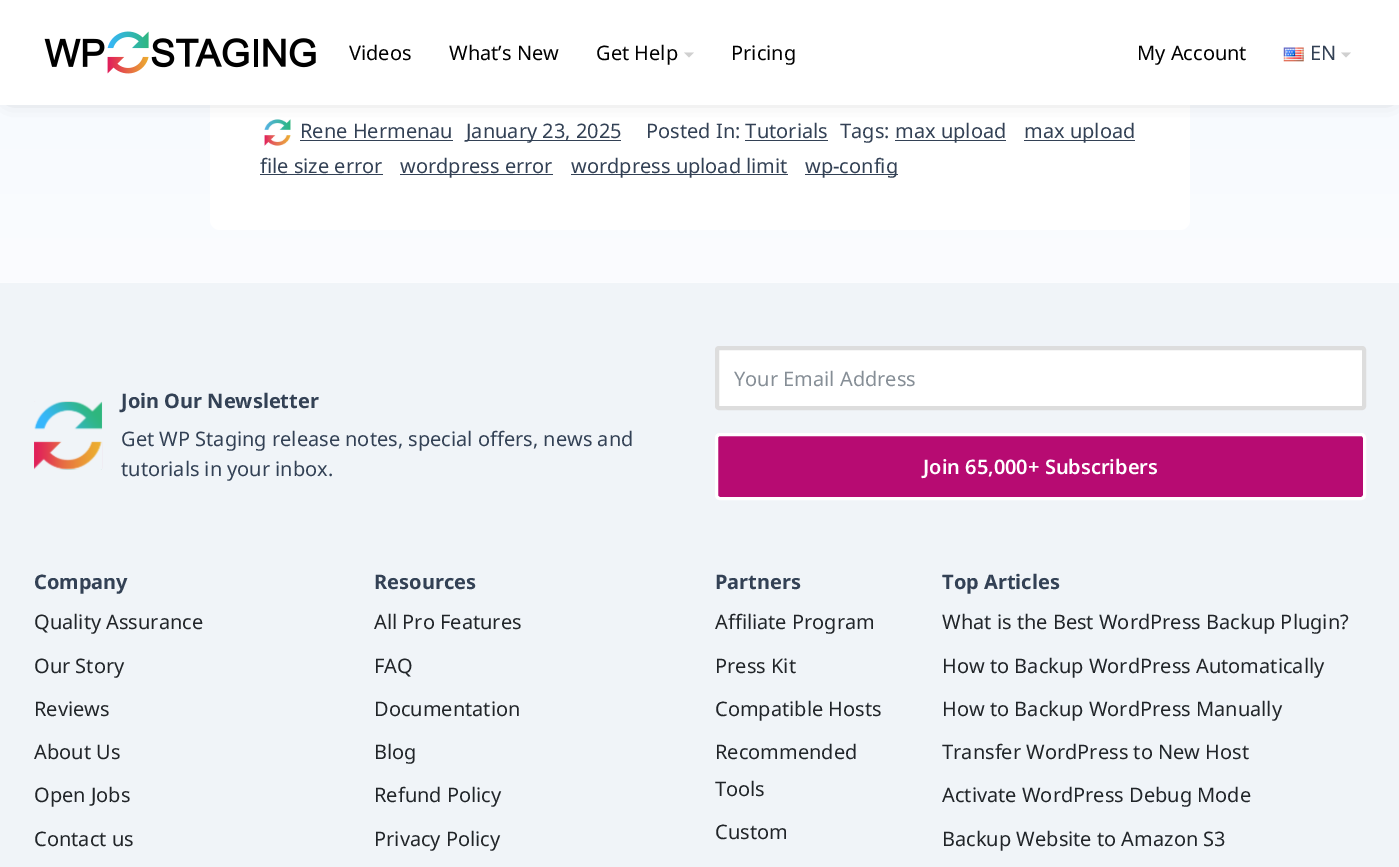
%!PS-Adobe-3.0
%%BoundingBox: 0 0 1399 867
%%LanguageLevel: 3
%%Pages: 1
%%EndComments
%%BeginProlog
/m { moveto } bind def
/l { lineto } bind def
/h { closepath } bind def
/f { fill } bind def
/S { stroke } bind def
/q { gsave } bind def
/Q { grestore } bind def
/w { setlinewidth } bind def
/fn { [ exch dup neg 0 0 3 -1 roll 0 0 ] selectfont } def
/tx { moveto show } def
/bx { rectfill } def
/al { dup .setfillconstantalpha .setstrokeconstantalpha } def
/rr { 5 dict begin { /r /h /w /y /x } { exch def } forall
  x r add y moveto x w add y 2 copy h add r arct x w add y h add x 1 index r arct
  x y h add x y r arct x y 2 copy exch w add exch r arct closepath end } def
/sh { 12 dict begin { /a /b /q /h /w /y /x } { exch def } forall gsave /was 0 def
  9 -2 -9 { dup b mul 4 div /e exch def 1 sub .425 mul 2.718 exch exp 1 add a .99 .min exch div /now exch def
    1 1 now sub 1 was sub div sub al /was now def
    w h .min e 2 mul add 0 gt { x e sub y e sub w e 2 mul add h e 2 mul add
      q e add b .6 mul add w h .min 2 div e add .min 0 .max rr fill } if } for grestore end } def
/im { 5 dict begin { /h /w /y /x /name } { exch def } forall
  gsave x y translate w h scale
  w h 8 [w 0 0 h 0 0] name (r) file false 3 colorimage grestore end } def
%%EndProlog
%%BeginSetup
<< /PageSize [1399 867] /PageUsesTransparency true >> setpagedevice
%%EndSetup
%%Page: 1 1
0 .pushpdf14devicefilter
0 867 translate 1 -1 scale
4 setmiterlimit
1 setgray
0 0 1399 867 bx
q 0 105 m 1399 105 l 1399 283 l 0 283 l h clip newpath
<< /ShadingType 2 /ColorSpace /DeviceRGB /Coords [700 -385 700 283] /Extend [true true] /Function << /FunctionType 2 /Domain [0 1] /C0 [0.922 0.957 0.996] /C1 [0.984 0.988 0.996] /N 1 >> >> shfill Q
210 -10 980 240 10 rr f
(image2.raw) 264 119 27 27 im
0.647 setgray
10 11 1380 85 0 9.5 1 sh
1 setgray
0 0 1399 105 bx
(image0.raw) 44 31 272 43 im
/NotoSans-Regular 20 fn
0 setgray
(Videos) 349 60 tx
(What’s New) 449 60 tx
(Get Help) 596 60 tx
0.816 setgray
684 52.5 m 694 52.5 l 689 57.5 l h f
0 setgray
(Pricing) 731 60 tx
(My Account) 1137 60 tx
(image1.raw) 1283 47 21 15 im
0.2 0.255 0.333 setrgbcolor
(EN) 1310 60 tx
0.816 setgray
1341 52.5 m 1351 52.5 l 1346 57.5 l h f
0.2 0.255 0.333 setrgbcolor
(Rene Hermenau) 300 138 tx
300 140 153 1 bx
465 140 156 1 bx
(January 23, 2025) 466 138 tx
(Posted In: Tutorials) 646 138 tx
745 140 83 1 bx
(Tags:) 840 138 tx
895 140 111 1 bx
(max upload) 895 138 tx
1024 140 111 1 bx
(max upload) 1024 138 tx
(file size error) 260 173 tx
260 174 123 1 bx
400 174 153 1 bx
(wordpress error) 400 173 tx
571 174 217 1 bx
(wordpress upload limit) 571 173 tx
805 174 93 1 bx
(wp-config) 805 173 tx
0.941 0.957 0.973 setrgbcolor
0 283 1399 584 bx
(image3.raw) 34 401 69 69 im
/NotoSans-Bold 20 fn
0.2 0.255 0.333 setrgbcolor
(Join Our Newsletter) 121 408 tx
/NotoSans-Regular 20 fn
(Get WP Staging release notes, special offers, news and) 121 446 tx
(tutorials in your inbox.) 121 476 tx
1 setgray
717 348 647 60 2 rr q f Q
0.867 setgray
4 w
S
0.525 0.557 0.588 setrgbcolor
(Your Email Address) 734 386 tx
0.718 0.043 0.447 setrgbcolor
716.5 434.5 648 64 3.5 rr q f Q
1 setgray
3 w
S
/NotoSans-SemiBold 20 fn
(Join 65,000+ Subscribers) 923 474 tx
/NotoSans-Bold 20 fn
0.2 0.255 0.333 setrgbcolor
(Company) 34 589 tx
/NotoSans-Regular 20 fn
0.129 0.145 0.161 setrgbcolor
(Quality Assurance) 34 629 tx
(Our Story) 34 673 tx
(Reviews) 34 716 tx
(About Us) 34 759 tx
(Open Jobs) 34 802 tx
(Contact us) 34 846 tx
/NotoSans-Bold 20 fn
0.2 0.255 0.333 setrgbcolor
(Resources) 374 589 tx
/NotoSans-Regular 20 fn
0.129 0.145 0.161 setrgbcolor
(All Pro Features) 374 629 tx
(FAQ) 374 673 tx
(Documentation) 374 716 tx
(Blog) 374 759 tx
(Refund Policy) 374 802 tx
(Privacy Policy) 374 846 tx
/NotoSans-Bold 20 fn
0.2 0.255 0.333 setrgbcolor
(Partners) 715 589 tx
/NotoSans-Regular 20 fn
0.129 0.145 0.161 setrgbcolor
(Affiliate Program) 715 629 tx
(Press Kit) 715 673 tx
(Compatible Hosts) 715 716 tx
(Recommended) 715 759 tx
(Tools) 715 796 tx
(Custom) 715 839 tx
/NotoSans-Bold 20 fn
0.2 0.255 0.333 setrgbcolor
(Top Articles) 942 589 tx
/NotoSans-Regular 20 fn
0.129 0.145 0.161 setrgbcolor
(What is the Best WordPress Backup Plugin?) 942 629 tx
(How to Backup WordPress Automatically) 942 673 tx
(How to Backup WordPress Manually) 942 716 tx
(Transfer WordPress to New Host) 942 759 tx
(Activate WordPress Debug Mode) 942 802 tx
(Backup Website to Amazon S3) 942 846 tx
.poppdf14devicefilter showpage
%%EOF
